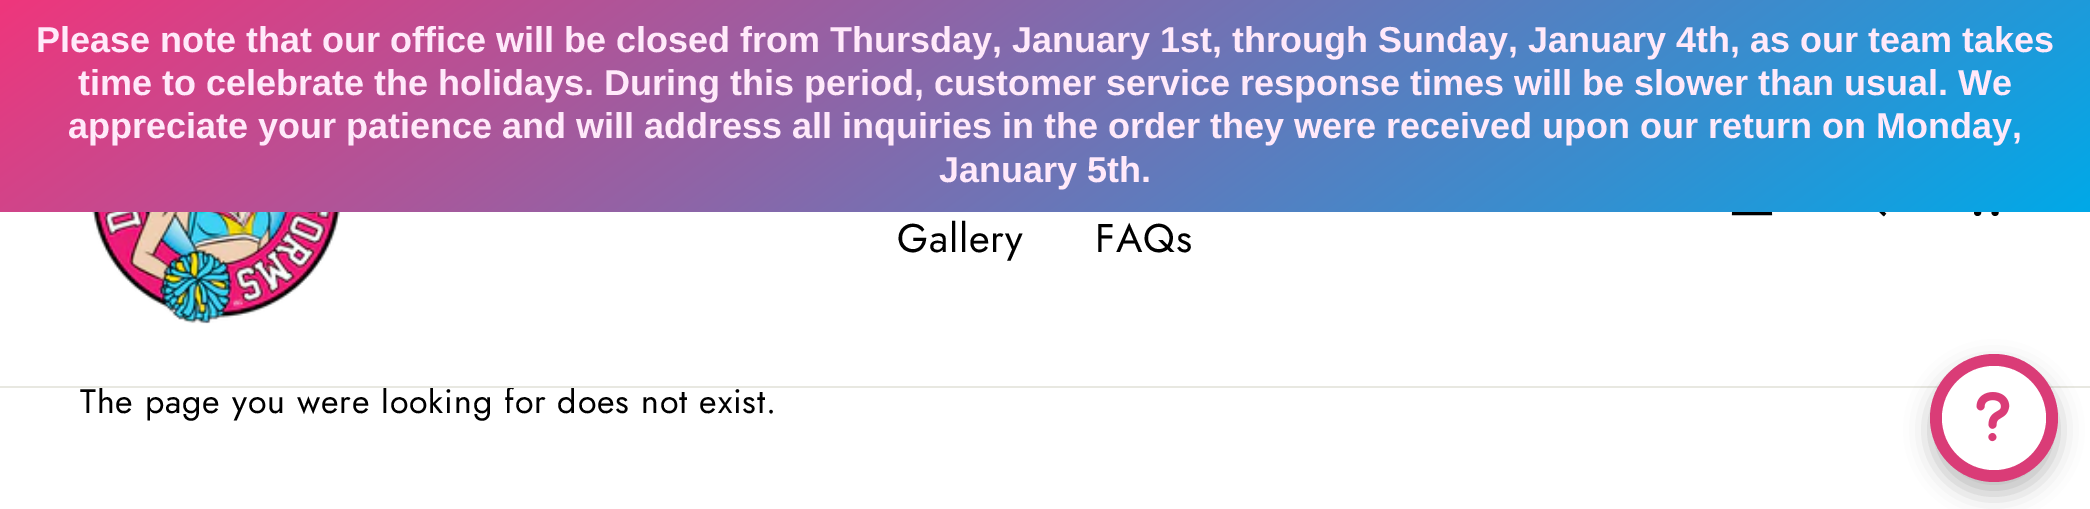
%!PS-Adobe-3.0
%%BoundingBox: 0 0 2090 509
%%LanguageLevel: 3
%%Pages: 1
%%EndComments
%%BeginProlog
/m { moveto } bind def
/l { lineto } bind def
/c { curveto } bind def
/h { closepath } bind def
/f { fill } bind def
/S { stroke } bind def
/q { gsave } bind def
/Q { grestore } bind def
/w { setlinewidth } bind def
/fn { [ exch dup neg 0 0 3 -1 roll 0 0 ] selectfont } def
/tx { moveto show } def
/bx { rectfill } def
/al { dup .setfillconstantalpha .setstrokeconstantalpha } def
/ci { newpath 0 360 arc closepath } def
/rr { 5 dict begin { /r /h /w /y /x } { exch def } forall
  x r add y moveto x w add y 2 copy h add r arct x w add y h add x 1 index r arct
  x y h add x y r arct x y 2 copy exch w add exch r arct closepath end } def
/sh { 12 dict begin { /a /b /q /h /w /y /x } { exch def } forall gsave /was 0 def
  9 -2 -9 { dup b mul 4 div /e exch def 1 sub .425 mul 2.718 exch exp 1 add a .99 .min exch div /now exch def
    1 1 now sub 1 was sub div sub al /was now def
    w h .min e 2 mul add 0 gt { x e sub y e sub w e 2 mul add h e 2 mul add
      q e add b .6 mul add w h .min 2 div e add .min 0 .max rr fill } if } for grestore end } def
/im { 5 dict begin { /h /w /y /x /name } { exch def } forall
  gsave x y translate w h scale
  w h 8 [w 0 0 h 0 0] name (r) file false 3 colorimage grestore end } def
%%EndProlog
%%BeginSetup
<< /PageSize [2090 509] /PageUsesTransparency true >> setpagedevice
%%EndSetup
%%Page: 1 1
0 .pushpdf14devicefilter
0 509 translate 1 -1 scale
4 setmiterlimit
1 setgray
0 0 2090 509 bx
0 setgray
3.5 w
1879.5 193 m 1879.5 202 1872 209.5 1863 209.5 c 1854 209.5 1847 202 1847 193 c 1847 184 1854 177 1863 177 c 1872 177 1879.5 184 1879.5 193 c h 1885 215 m 1874.5 205 l S
1977.6 212.4 1.8 ci S
1995.1 212.4 1.8 ci S
q 0 0 m 2090 0 l 2090 212 l 0 212 l h clip newpath
<< /ShadingType 2 /ColorSpace /DeviceRGB /Coords [634 -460 1456 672] /Extend [true true] /Function << /FunctionType 2 /Domain [0 1] /C0 [0.937 0.212 0.486] /C1 [0 0.663 0.91] /N 1 >> >> shfill Q
/LiberationSans-Bold 36 fn
1 0.914 0.98 setrgbcolor
(Please note that our office will be closed from Thursday, January 1st, through Sunday, January 4th, as our team takes) 36 52 tx
(time to celebrate the holidays. During this period, customer service response times will be slower than usual. We) 78 95 tx
(appreciate your patience and will address all inquiries in the order they were received upon our return on Monday,) 68 138 tx
(January 5th.) 939 182 tx
/Jost-Regular 34 fn
0 setgray
80 413 m 0.85 0 (The page you were looking for does not exist.) ashow
0.91 0.91 0.882 setrgbcolor
0 386 2090 2 bx
(image0.raw) 1731 212 42 4 im
(image1.raw) 92 212 248 112 im
/Jost-Regular 40 fn
0 setgray
897 252 m 0.85 0 (Gallery) ashow
1095 252 m 0.85 0 (FAQs) ashow
1930 366 128 128 64 12 0.25 sh
0.855 0.235 0.467 setrgbcolor
1994 418 64 ci f
1 setgray
1994 418 52 ci f
(image2.raw) 1976 392 34 50 im
.poppdf14devicefilter showpage
%%EOF
